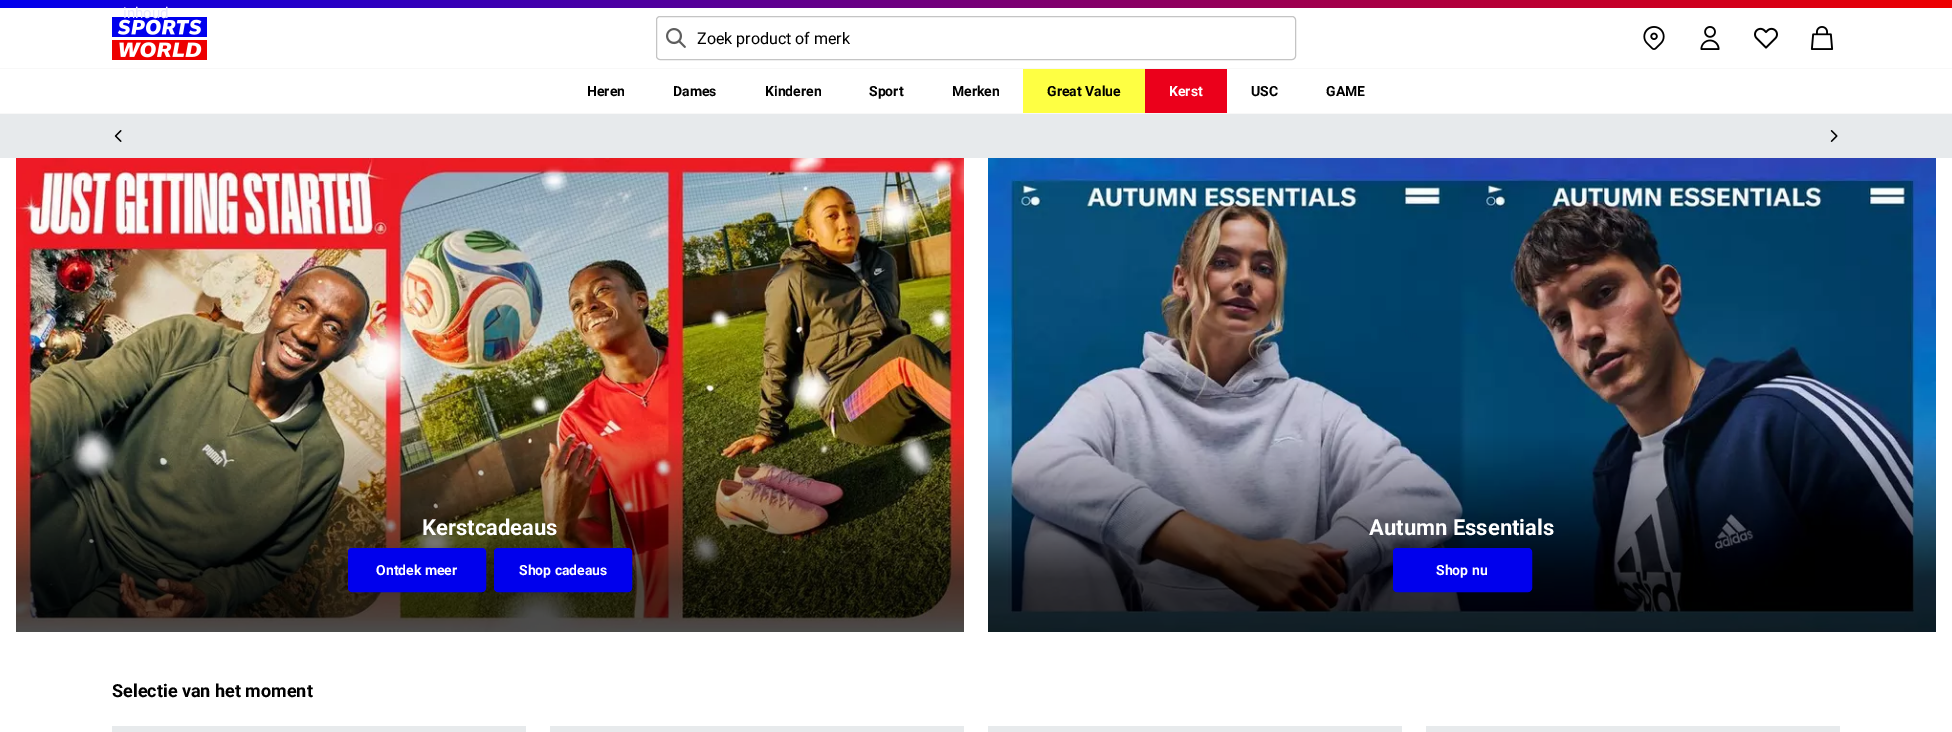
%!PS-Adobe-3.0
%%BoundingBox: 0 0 1952 732
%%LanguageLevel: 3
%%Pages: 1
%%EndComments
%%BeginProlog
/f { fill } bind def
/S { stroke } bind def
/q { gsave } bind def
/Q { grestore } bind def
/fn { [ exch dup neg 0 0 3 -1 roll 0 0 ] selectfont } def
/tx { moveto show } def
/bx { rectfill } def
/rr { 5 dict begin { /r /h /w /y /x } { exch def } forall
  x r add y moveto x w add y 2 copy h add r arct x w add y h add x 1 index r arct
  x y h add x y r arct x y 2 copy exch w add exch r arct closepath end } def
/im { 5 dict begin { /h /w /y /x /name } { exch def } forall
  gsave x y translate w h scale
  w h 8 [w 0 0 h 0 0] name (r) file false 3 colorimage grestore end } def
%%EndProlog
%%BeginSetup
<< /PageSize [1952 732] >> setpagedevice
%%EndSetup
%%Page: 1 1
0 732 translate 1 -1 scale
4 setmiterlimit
1 setgray
0 0 1952 732 bx
(image0.raw) 0 0 1952 8 im
(image1.raw) 112 17 95 43 im
/Roboto-Regular 15 fn
0.91 0.906 0.992 setrgbcolor
(inhoud) 123 18 tx
0.769 setgray
656.5 16.5 639 43 3.5 rr S
(image2.raw) 666 28 20 20 im
/Roboto-Regular 16 fn
0 setgray
(Zoek product of merk) 697 44 tx
(image3.raw) 1643 26 22 24 im
(image4.raw) 1700 26 20 24 im
(image5.raw) 1754 27 24 22 im
(image6.raw) 1810 26 24 24 im
0.973 setgray
0 68 1952 1 bx
0 113 1952 1 bx
/Roboto-Bold 14 fn
0 setgray
(Heren) 587 96 tx
(Dames) 673 96 tx
(Kinderen) 765 96 tx
(Sport) 869 96 tx
(Merken) 952 96 tx
0.996 1 0.263 setrgbcolor
1023 69 122 44 bx
0 setgray
(Great Value) 1047 96 tx
0.922 0 0.106 setrgbcolor
1145 69 82 44 bx
1 setgray
(Kerst) 1169 96 tx
0 setgray
(USC) 1251 96 tx
(GAME) 1326 96 tx
0.906 0.918 0.925 setrgbcolor
0 114 1952 44 bx
(image7.raw) 114 130 8 12 im
(image8.raw) 1830 130 8 12 im
(image9.raw) 16 158 948 474 im
/Roboto-Bold 22 fn
1 setgray
(Kerstcadeaus) 422 535 tx
0 0 0.929 setrgbcolor
348.5 548.5 137 43 3.5 rr q f Q
S
/Roboto-Bold 14 fn
1 setgray
(Ontdek meer) 376 575 tx
0 0 0.929 setrgbcolor
494.5 548.5 137 43 3.5 rr q f Q
S
1 setgray
(Shop cadeaus) 519 575 tx
(image10.raw) 988 158 948 474 im
/Roboto-Bold 22 fn
(Autumn Essentials) 1369 535 tx
0 0 0.929 setrgbcolor
1393.5 548.5 138 43 3.5 rr q f Q
S
/Roboto-Bold 14 fn
1 setgray
(Shop nu) 1436 575 tx
/Roboto-Bold 18 fn
0 setgray
(Selectie van het moment) 112 697 tx
0.906 0.918 0.925 setrgbcolor
112 726 414 6 bx
550 726 414 6 bx
988 726 414 6 bx
1426 726 414 6 bx
showpage
%%EOF
